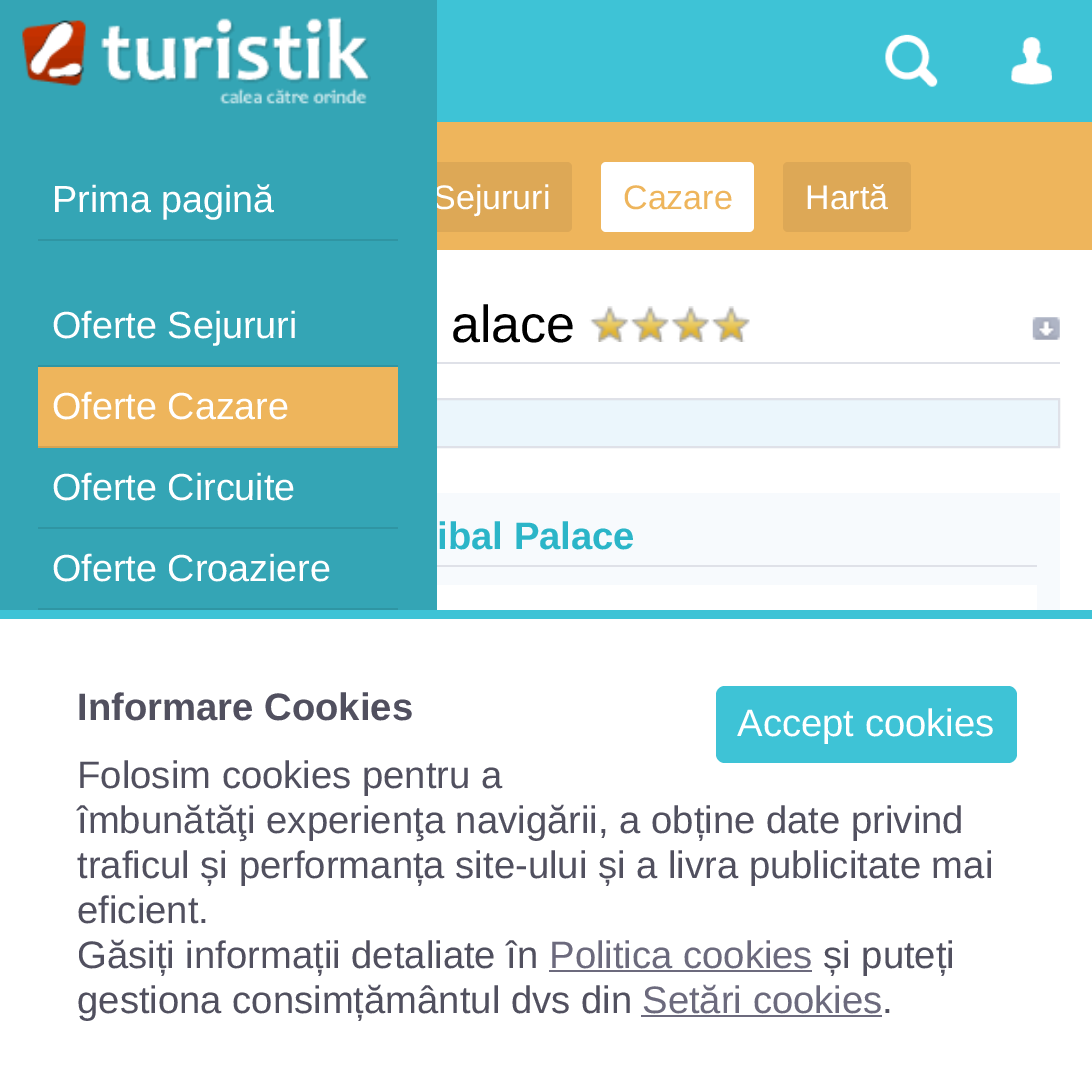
%!PS-Adobe-3.0
%%BoundingBox: 0 0 1092 1090
%%LanguageLevel: 3
%%Pages: 1
%%EndComments
%%BeginProlog
/f { fill } bind def
/w { setlinewidth } bind def
/fn { [ exch dup neg 0 0 3 -1 roll 0 0 ] selectfont } def
/tx { moveto show } def
/bx { rectfill } def
/rr { 5 dict begin { /r /h /w /y /x } { exch def } forall
  x r add y moveto x w add y 2 copy h add r arct x w add y h add x 1 index r arct
  x y h add x y r arct x y 2 copy exch w add exch r arct closepath end } def
/im { 5 dict begin { /h /w /y /x /name } { exch def } forall
  gsave x y translate w h scale
  w h 8 [w 0 0 h 0 0] name (r) file false 3 colorimage grestore end } def
%%EndProlog
%%BeginSetup
<< /PageSize [1092 1090] >> setpagedevice
%%EndSetup
%%Page: 1 1
0 1090 translate 1 -1 scale
4 setmiterlimit
1 setgray
0 0 1092 1090 bx
0.243 0.765 0.839 setrgbcolor
437 0 655 122 bx
(image0.raw) 885 34 53 53 im
(image1.raw) 1011 37 41 48 im
0.933 0.71 0.361 setrgbcolor
437 122 655 128 bx
0.867 0.659 0.337 setrgbcolor
410 162 162 70 5 rr f
/LiberationSans-Regular 34 fn
1 setgray
(Sejururi) 433 209 tx
0.922 0.965 0.988 setrgbcolor
437 400 621 46 bx
0.875 0.882 0.91 setrgbcolor
2 w
35 399 1024 48 rectstroke
0.204 0.647 0.71 setrgbcolor
0 0 437 610 bx
(image2.raw) 22 16 349 88 im
0.184 0.584 0.639 setrgbcolor
38 239 360 2 bx
/LiberationSans-Regular 37.75 fn
1 setgray
(Prima pagină) 52 212 tx
0.184 0.584 0.639 setrgbcolor
38 365 360 2 bx
1 setgray
(Oferte Sejururi) 52 338 tx
0.933 0.71 0.361 setrgbcolor
38 367 360 79 bx
0.839 0.639 0.325 setrgbcolor
38 446 360 2 bx
1 setgray
(Oferte Cazare) 52 419 tx
0.184 0.584 0.639 setrgbcolor
38 527 360 2 bx
1 setgray
(Oferte Circuite) 52 500 tx
0.184 0.584 0.639 setrgbcolor
38 608 360 2 bx
1 setgray
(Oferte Croaziere) 52 581 tx
601 162 153 70 5 rr f
/LiberationSans-Regular 34 fn
0.933 0.71 0.361 setrgbcolor
(Cazare) 623 209 tx
0.867 0.659 0.337 setrgbcolor
783 162 128 70 5 rr f
1 setgray
(Hartă) 805 209 tx
(image3.raw) 1032 317 28 23 im
0.875 0.882 0.91 setrgbcolor
437 362 623 2 bx
/LiberationSans-Regular 52 fn
0 setgray
(alace) 451 342 tx
(image4.raw) 589 306 40 36 im
(image5.raw) 630 306 39 36 im
(image6.raw) 670 306 40 36 im
(image7.raw) 711 306 39 36 im
0.969 0.98 0.992 setrgbcolor
437 493 623 117 bx
0.875 0.882 0.91 setrgbcolor
437 565 600 2 bx
/LiberationSans-Bold 38.25 fn
0.169 0.71 0.784 setrgbcolor
(ibal Palace) 437 549 tx
1 setgray
437 585 600 25 bx
0.243 0.765 0.839 setrgbcolor
0 610 1092 9 bx
0.318 0.314 0.373 setrgbcolor
(Informare Cookies) 77 720 tx
0.243 0.765 0.839 setrgbcolor
716 686 301 77 9 rr f
/LiberationSans-Regular 38.25 fn
1 setgray
(Accept cookies) 737 736 tx
0.318 0.314 0.373 setrgbcolor
(Folosim cookies pentru a) 77 788 tx
(îmbunătăţi experienţa navigării, a obține date privind) 77 833 tx
(traficul și performanța site-ului și a livra publicitate mai) 77 878 tx
(eficient.) 77 923 tx
(Găsiți informații detaliate în) 77 968 tx
0.424 0.416 0.49 setrgbcolor
(Politica cookies) 549 968 tx
549 970 263 2 bx
0.318 0.314 0.373 setrgbcolor
(și puteți) 823 968 tx
(gestiona consimțământul dvs din) 77 1013 tx
0.424 0.416 0.49 setrgbcolor
(Setări cookies) 642 1013 tx
641 1015 241 2 bx
0.318 0.314 0.373 setrgbcolor
(.) 882 1013 tx
showpage
%%EOF
